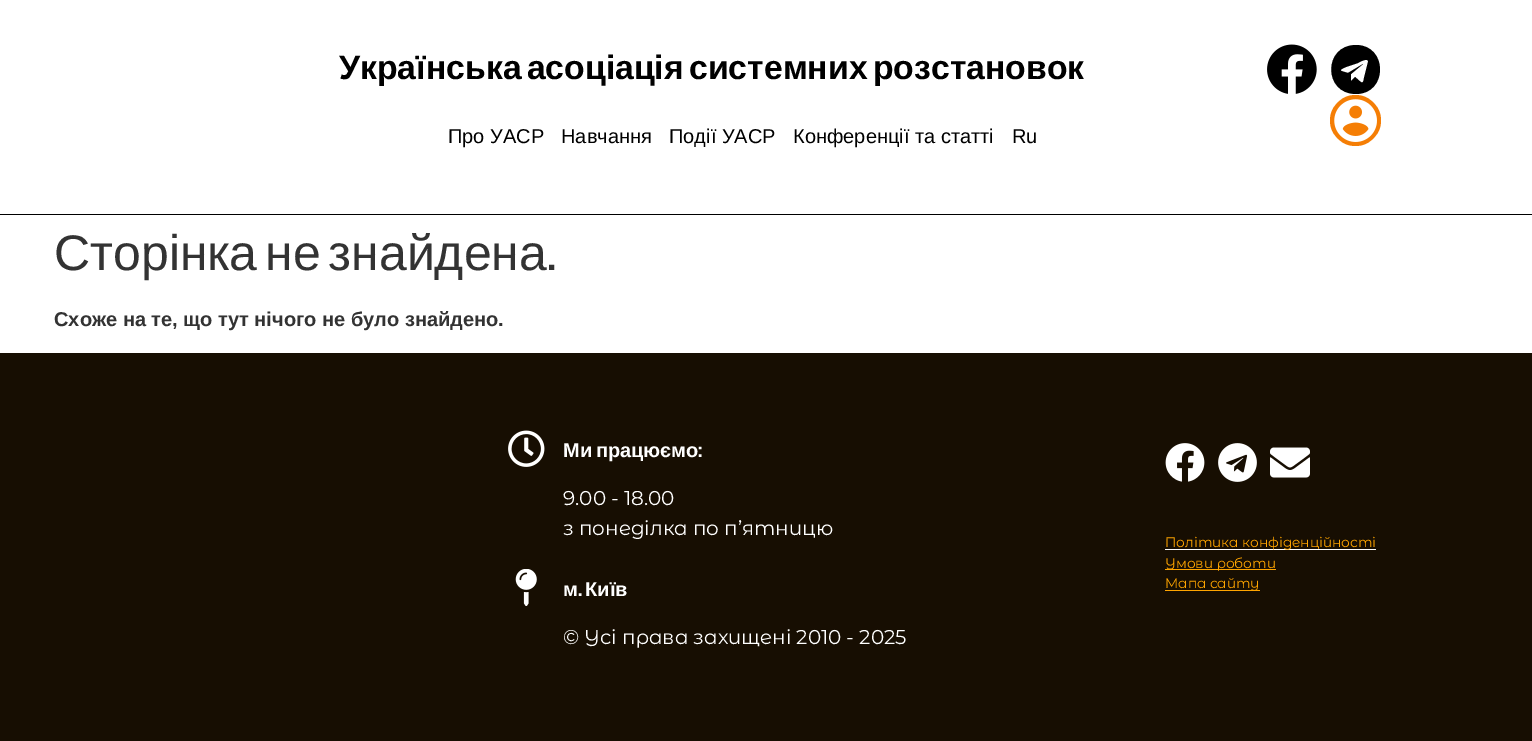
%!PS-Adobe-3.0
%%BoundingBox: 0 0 1532 741
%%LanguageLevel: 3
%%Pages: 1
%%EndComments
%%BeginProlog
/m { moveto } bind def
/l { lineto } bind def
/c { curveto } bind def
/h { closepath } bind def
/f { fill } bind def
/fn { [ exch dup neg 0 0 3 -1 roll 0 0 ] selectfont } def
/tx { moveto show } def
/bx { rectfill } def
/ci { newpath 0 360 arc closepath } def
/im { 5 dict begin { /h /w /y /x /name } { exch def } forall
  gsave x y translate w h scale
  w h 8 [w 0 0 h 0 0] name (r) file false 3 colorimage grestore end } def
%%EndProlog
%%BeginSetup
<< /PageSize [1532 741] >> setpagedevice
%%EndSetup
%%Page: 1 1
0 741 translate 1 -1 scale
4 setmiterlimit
1 setgray
0 0 1532 741 bx
0 setgray
0 214 1532 1 bx
/LiberationSans-Bold 33.75 fn
339 79 m -4 0 32 (Українська асоціація системних розстановок) widthshow
/LiberationSans-Regular 20 fn
(Про УАСР) 448 143 tx
(Навчання) 561 143 tx
(Події УАСР) 669 143 tx
(Конференції та статті) 793 143 tx
(Ru) 1012 143 tx
(image0.raw) 1267 44 50 50 im
1356 45 m 1323 45 1323 94 1356 94 c 1388 94 1388 45 1356 45 c h 1368 62 m 1364 78 l 1363 86 1361 82 1355 77 c 1351 81 l 1351 74 l 1363 64 l 1348 73 l 1342 71 1336 71 1346 67 c 1358 63 l 1359 62 1369 57 1368 62 c h f
0.961 0.494 0.02 setrgbcolor
1355.5 120.5 25.5 ci f
(image1.raw) 1334 99 43 43 im
/LiberationSans-Regular 50 fn
0.2 setgray
54 270 m -6 0 32 (Сторінка не знайдена) widthshow
/BebasNeue-Regular 50 fn
(.) 547 270 tx
/LiberationSans-Bold 20 fn
(Схоже на те, що тут нічого не було знайдено.) 54 326 tx
0.09 0.055 0.008 setrgbcolor
0 353 1532 388 bx
(image2.raw) 508 430 37 37 im
1 setgray
563 457 m -2 0 32 (Ми працюємо) widthshow
/BebasNeue-Bold 20 fn
(:) 698 457 tx
/MontserratAlternates-Regular 20 fn
(9.00 - 18.00) 563 505 tx
(з понеділка по п’ятницю) 563 535 tx
(image3.raw) 515 569 22 37 im
/LiberationSans-Bold 20 fn
(м) 563 596 tx
/BebasNeue-Bold 20 fn
(.) 578 596 tx
/LiberationSans-Bold 20 fn
(Київ) 585 596 tx
/MontserratAlternates-Regular 20 fn
(© Усі права захищені 2010 - 2025) 563 644 tx
(image4.raw) 1165 443 40 39 im
(image5.raw) 1218 443 39 39 im
(image6.raw) 1270 447 40 31 im
1165 549 211 1 bx
/MontserratAlternates-Regular 13.75 fn
1 0.647 0 setrgbcolor
(Політика конфіденційності) 1165 547 tx
1165 569 111 1 bx
(Умови роботи) 1165 568 tx
1165 590 95 1 bx
(Мапа сайту) 1165 588 tx
showpage
%%EOF
